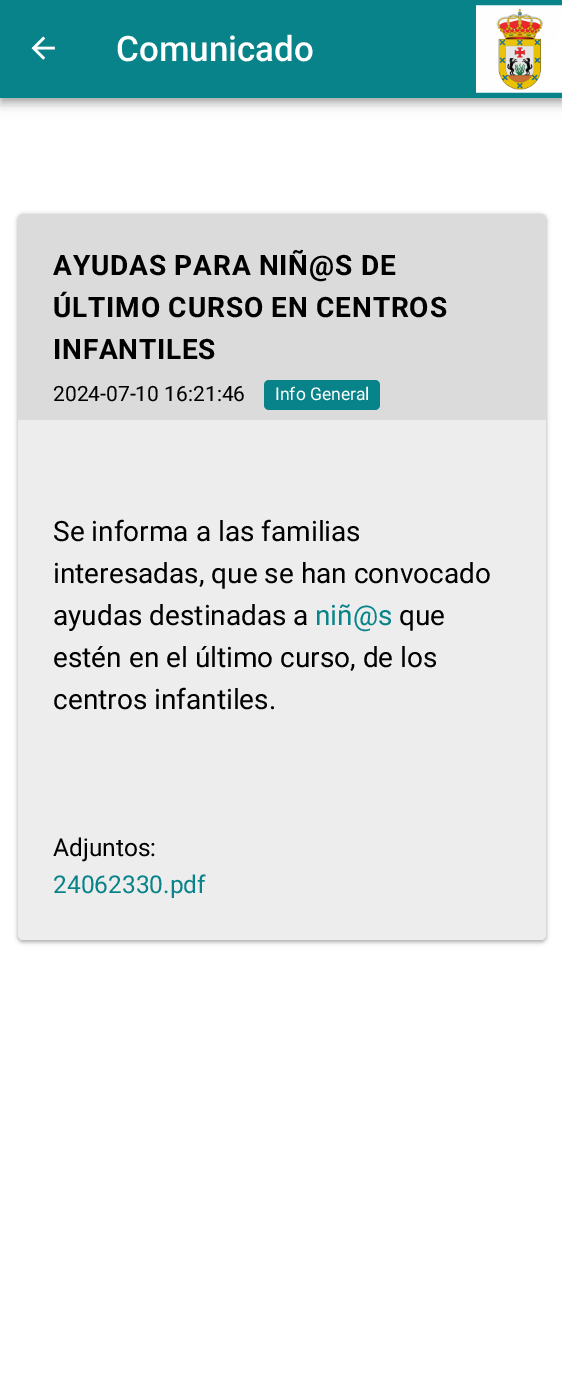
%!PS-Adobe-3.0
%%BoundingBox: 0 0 562 1376
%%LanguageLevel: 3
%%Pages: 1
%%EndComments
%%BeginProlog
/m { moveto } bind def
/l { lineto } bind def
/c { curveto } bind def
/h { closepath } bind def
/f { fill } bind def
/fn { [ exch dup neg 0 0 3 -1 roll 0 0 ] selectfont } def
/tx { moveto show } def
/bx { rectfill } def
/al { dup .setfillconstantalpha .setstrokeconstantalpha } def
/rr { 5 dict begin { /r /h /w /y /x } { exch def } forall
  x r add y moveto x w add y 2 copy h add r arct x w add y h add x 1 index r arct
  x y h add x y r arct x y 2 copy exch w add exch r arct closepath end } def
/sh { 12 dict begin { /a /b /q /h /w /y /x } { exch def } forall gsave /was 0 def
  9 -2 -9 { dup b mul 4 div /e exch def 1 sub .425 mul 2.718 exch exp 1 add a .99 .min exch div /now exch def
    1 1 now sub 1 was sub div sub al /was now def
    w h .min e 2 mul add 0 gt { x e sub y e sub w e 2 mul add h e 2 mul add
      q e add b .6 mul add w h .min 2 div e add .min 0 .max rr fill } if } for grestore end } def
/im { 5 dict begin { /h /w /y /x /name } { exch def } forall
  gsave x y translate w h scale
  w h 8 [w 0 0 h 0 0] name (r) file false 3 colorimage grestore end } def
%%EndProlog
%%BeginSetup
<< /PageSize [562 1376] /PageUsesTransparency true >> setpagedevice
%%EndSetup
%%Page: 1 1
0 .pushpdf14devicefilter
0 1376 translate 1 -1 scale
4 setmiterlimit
1 setgray
0 0 562 1376 bx
0 setgray
0 2 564 98 0 9 0.12 sh
0 7 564 98 0 4.5 0.14 sh
2 5 560 95 0 3.5 0.2 sh
0.031 0.514 0.537 setrgbcolor
0 0 562 98 bx
(image0.raw) 31 36 24 24 im
/Roboto-Medium 35 fn
1 setgray
(Comunicado) 116 61 tx
(image1.raw) 476 5 86 88 im
0 setgray
18 215 528 727 5 2 0.24 sh
18 215 528 727 5 2.5 0.12 sh
0.929 setgray
18 214 528 726 5 rr f
0.859 setgray
23 214 m 541 214 l 544 214 546 216 546 219 c 546 420 l 18 420 l 18 219 l 18 216 20 214 23 214 c h f
/Roboto-Bold 28 fn
0 setgray
53 275 m 0.8 0 (AYUDAS PARA NIÑ@S DE) ashow
53 317 m 0.8 0 (ÚLTIMO CURSO EN CENTROS) ashow
53 359 m 0.8 0 (INFANTILES) ashow
/Roboto-Regular 21 fn
(2024-07-10 16:21:46) 53 401 tx
0.031 0.514 0.537 setrgbcolor
264 380 116 30 5 rr f
/Roboto-Regular 17.5 fn
1 setgray
(Info General) 275 400 tx
/Roboto-Regular 28 fn
0 setgray
(Se informa a las familias) 53 541 tx
(interesadas, que se han convocado) 53 583 tx
(ayudas destinadas a) 53 625 tx
0.031 0.514 0.537 setrgbcolor
(niñ@s) 315 625 tx
0 setgray
(que) 399 625 tx
(estén en el último curso, de los) 53 667 tx
(centros infantiles.) 53 709 tx
/Roboto-Regular 24.5 fn
(Adjuntos:) 53 856 tx
0.031 0.514 0.537 setrgbcolor
(24062330.pdf) 53 893 tx
.poppdf14devicefilter showpage
%%EOF
